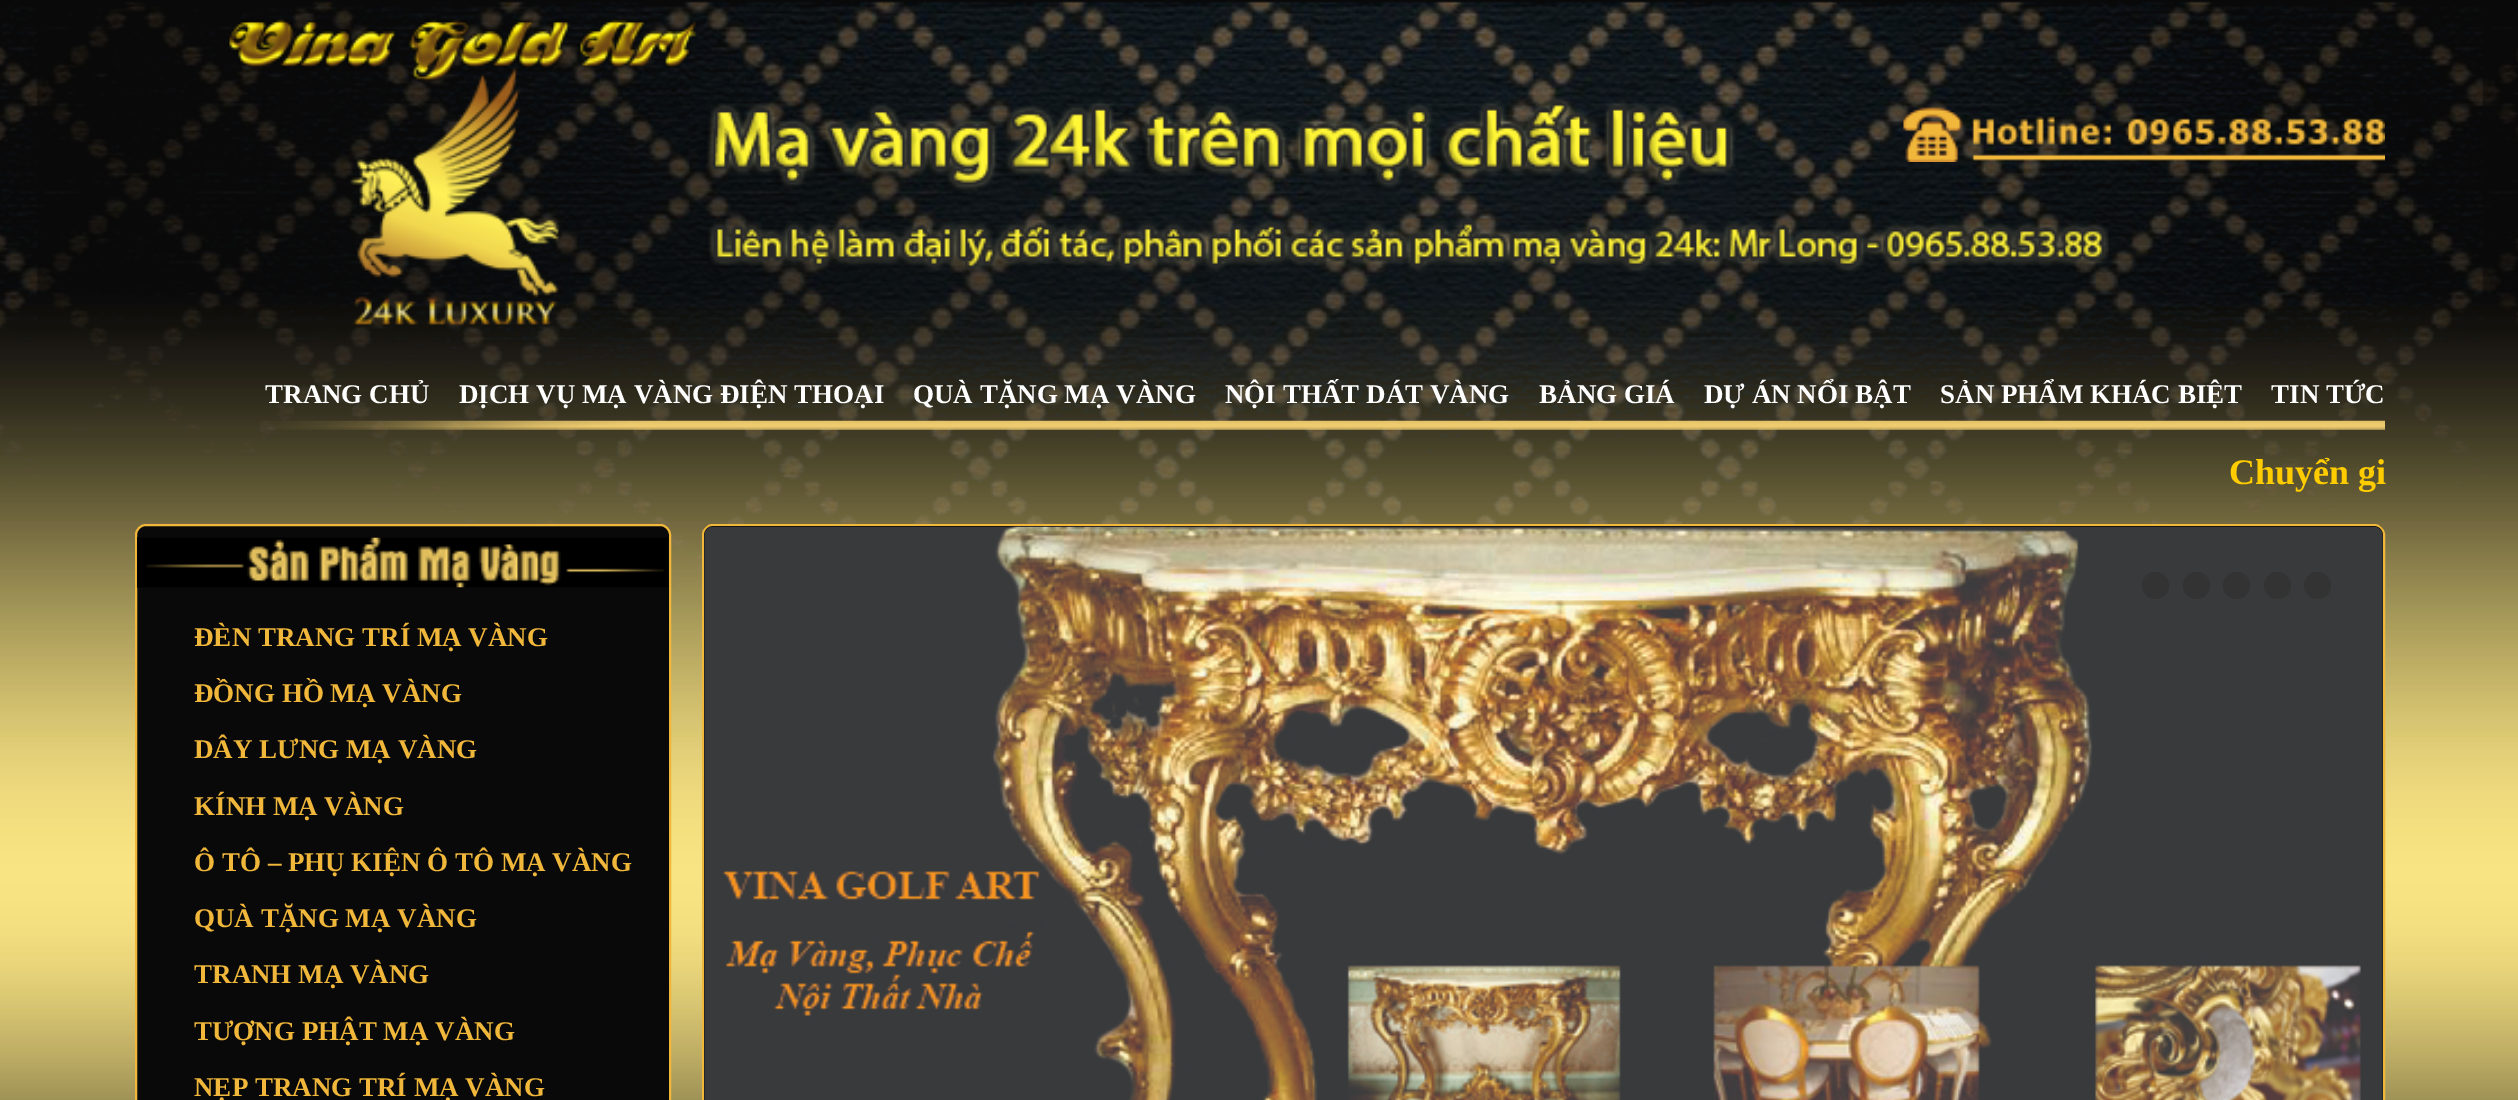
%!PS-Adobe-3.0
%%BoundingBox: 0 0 2518 1100
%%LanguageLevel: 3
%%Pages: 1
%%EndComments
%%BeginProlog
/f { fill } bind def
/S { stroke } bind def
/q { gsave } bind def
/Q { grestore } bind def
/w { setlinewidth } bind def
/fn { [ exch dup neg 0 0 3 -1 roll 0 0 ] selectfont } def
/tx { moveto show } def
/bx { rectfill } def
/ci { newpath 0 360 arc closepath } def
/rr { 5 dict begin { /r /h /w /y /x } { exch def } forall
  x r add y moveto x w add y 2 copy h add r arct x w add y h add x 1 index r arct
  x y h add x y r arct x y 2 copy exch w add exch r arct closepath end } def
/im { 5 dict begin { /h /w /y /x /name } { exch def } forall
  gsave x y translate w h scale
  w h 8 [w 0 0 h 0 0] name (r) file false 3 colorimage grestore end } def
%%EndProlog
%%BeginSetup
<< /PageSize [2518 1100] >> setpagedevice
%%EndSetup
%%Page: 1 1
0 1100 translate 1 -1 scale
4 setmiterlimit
0.035 setgray
0 0 2518 1100 bx
(image0.raw) 0 1 2518 1099 im
(image1.raw) 228 19 1881 306 im
(image2.raw) 1903 107 482 55 im
(image3.raw) 260 420 2125 10 im
/LiberationSerif-Bold 27 fn
1 setgray
(TRANG CHỦ) 265 403 tx
(DỊCH VỤ MẠ VÀNG ĐIỆN THOẠI) 459 403 tx
(QUÀ TẶNG MẠ VÀNG) 913 403 tx
(NỘI THẤT DÁT VÀNG) 1225 403 tx
(BẢNG GIÁ) 1539 403 tx
(DỰ ÁN NỔI BẬT) 1704 403 tx
(SẢN PHẨM KHÁC BIỆT) 1940 403 tx
(TIN TỨC) 2271 403 tx
/LiberationSerif-Bold 36 fn
1 0.8 0 setrgbcolor
(Chuyển gi) 2229 484 tx
0.035 setgray
136 525 534 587 10 rr q f Q
0.941 0.718 0.231 setrgbcolor
2 w
S
(image4.raw) 137 537 531 51 im
/LiberationSerif-Bold 27 fn
(ĐÈN TRANG TRÍ MẠ VÀNG) 194 646 tx
(ĐỒNG HỒ MẠ VÀNG) 194 702 tx
(DÂY LƯNG MẠ VÀNG) 194 758 tx
(KÍNH MẠ VÀNG) 194 815 tx
(Ô TÔ – PHỤ KIỆN Ô TÔ MẠ VÀNG) 194 871 tx
(QUÀ TẶNG MẠ VÀNG) 194 927 tx
(TRANH MẠ VÀNG) 194 983 tx
(TƯỢNG PHẬT MẠ VÀNG) 194 1040 tx
(NẸP TRANG TRÍ MẠ VÀNG) 194 1096 tx
0.035 setgray
703 525 1681 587 10 rr q f Q
0.941 0.718 0.231 setrgbcolor
S
(image5.raw) 704 526 1679 574 im
0.2 setgray
2155.5 585.5 13.5 ci f
2196.5 585.5 13.5 ci f
2236.5 585.5 13.5 ci f
2277.5 585.5 13.5 ci f
2317.5 585.5 13.5 ci f
showpage
%%EOF
